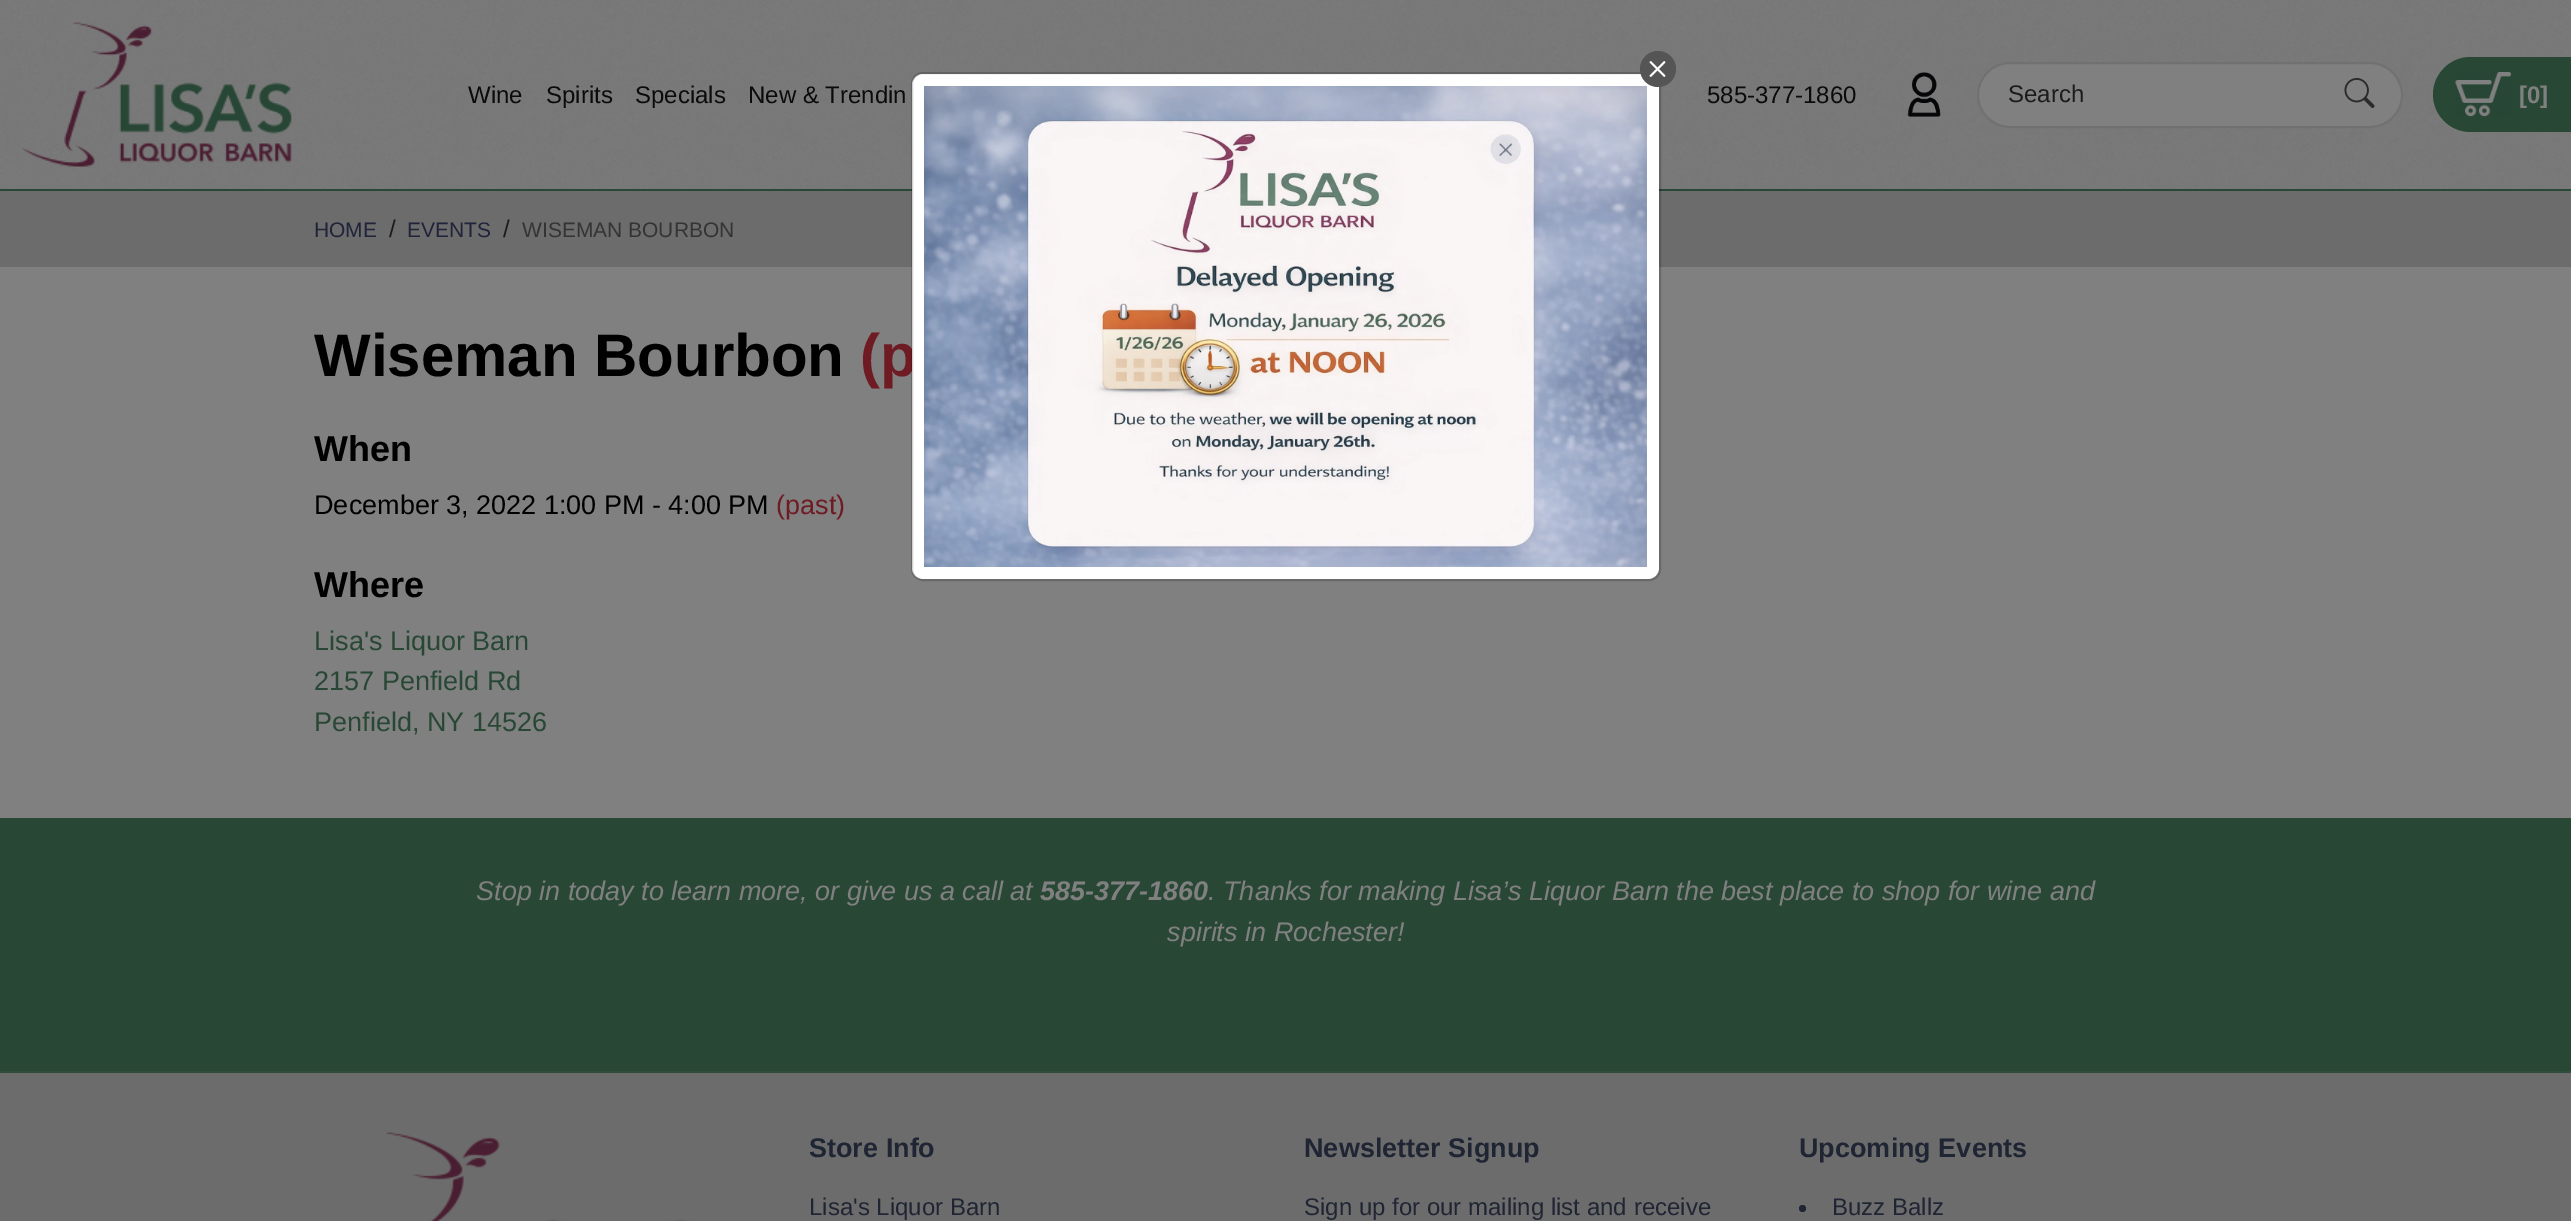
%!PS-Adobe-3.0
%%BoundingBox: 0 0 2571 1221
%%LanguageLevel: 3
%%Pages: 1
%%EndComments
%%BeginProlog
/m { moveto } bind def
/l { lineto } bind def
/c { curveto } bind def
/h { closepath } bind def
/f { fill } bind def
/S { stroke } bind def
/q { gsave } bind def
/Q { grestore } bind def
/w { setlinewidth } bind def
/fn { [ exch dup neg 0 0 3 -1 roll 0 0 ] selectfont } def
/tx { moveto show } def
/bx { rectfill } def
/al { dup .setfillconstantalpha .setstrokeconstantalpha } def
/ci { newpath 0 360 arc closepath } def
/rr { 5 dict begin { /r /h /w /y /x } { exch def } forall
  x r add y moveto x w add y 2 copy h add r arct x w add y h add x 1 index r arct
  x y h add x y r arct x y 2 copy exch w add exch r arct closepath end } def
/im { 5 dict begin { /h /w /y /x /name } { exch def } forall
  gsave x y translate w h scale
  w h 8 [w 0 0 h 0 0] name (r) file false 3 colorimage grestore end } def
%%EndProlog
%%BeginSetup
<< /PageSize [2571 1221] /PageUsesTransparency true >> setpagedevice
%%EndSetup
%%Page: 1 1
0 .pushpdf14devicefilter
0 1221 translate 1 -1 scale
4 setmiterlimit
0.502 setgray
0 0 2571 1221 bx
(image2.raw) 0 0 2571 189 im
0.157 0.278 0.208 setrgbcolor
0 189 2571 2 bx
0.424 setgray
0 191 2571 76 bx
/LiberationSans-Bold 60 fn
0.431 0.106 0.137 setrgbcolor
(\(p) 860 376 tx
1 setgray
912 74 747 505 11 rr f
0.18 al
0 setgray
2 w
912 73 748 507 11 rr S
1 al
(image1.raw) 924 86 723 481 im
0.333 setgray
1658 69 18 ci f
(image0.raw) 1649 61 17 16 im
(image3.raw) 22 22 270 145 im
/LiberationSans-Regular 24 fn
0.043 setgray
(Wine) 468 103 tx
(Spirits) 546 103 tx
(Specials) 635 103 tx
(New & Trendin) 748 103 tx
(585-377-1860) 1707 103 tx
(image4.raw) 1907 72 34 45 im
0.502 setgray
1978 63 424 64 32 rr q f Q
0.439 0.443 0.451 setrgbcolor
S
0.106 setgray
(Search) 2008 102 tx
(image5.raw) 2344 78 31 30 im
0.157 0.278 0.208 setrgbcolor
2470.5 57 m 2571 57 l 2571 132 l 2470.5 132 l 2450 132 2433 115 2433 94.5 c 2433 74 2450 57 2470.5 57 c h f
(image6.raw) 2455 72 56 45 im
/LiberationSans-Bold 24 fn
0.502 setgray
([0]) 2519 103 tx
/LiberationSans-Regular 21 fn
0.122 0.141 0.227 setrgbcolor
(HOME) 314 237 tx
/LiberationSans-Regular 24 fn
0.106 setgray
(/) 389 237 tx
/LiberationSans-Regular 21 fn
0.122 0.141 0.227 setrgbcolor
(EVENTS) 407 237 tx
/LiberationSans-Regular 24 fn
0.106 setgray
(/) 503 237 tx
/LiberationSans-Regular 21 fn
0.204 setgray
(WISEMAN BOURBON) 522 237 tx
/LiberationSans-Bold 60 fn
0 setgray
(Wiseman Bourbon) 314 376 tx
/LiberationSans-Bold 36 fn
(When) 314 461 tx
/LiberationSans-Regular 27 fn
(December 3, 2022 1:00 PM - 4:00 PM) 314 514 tx
0.431 0.106 0.137 setrgbcolor
(\(past\)) 776 514 tx
/LiberationSans-Bold 36 fn
0 setgray
(Where) 314 597 tx
/LiberationSans-Regular 27 fn
0.157 0.278 0.208 setrgbcolor
(Lisa's Liquor Barn) 314 650 tx
(2157 Penfield Rd) 314 690 tx
(Penfield, NY 14526) 314 731 tx
0 818 2571 253 bx
/LiberationSans-Italic 27 fn
0.502 setgray
(Stop in today to learn more, or give us a call at) 476 900 tx
/LiberationSans-BoldItalic 27 fn
(585-377-1860) 1040 900 tx
/LiberationSans-Italic 27 fn
(. Thanks for making Lisa’s Liquor Barn the best place to shop for wine and) 1208 900 tx
(spirits in Rochester!) 1167 941 tx
0.424 setgray
0 1073 2571 148 bx
0.192 0.298 0.239 setrgbcolor
0 1071 2571 2 bx
(image7.raw) 386 1132 304 89 im
/LiberationSans-Bold 27 fn
0.125 0.145 0.204 setrgbcolor
(Store Info) 809 1157 tx
/LiberationSans-Regular 24 fn
(Lisa's Liquor Barn) 809 1215 tx
/LiberationSans-Bold 27 fn
(Newsletter Signup) 1304 1157 tx
/LiberationSans-Regular 24 fn
(Sign up for our mailing list and receive) 1304 1215 tx
/LiberationSans-Bold 27 fn
(Upcoming Events) 1799 1157 tx
1802.5 1208.5 3.5 ci f
/LiberationSans-Regular 24 fn
(Buzz Ballz) 1832 1215 tx
.poppdf14devicefilter showpage
%%EOF
